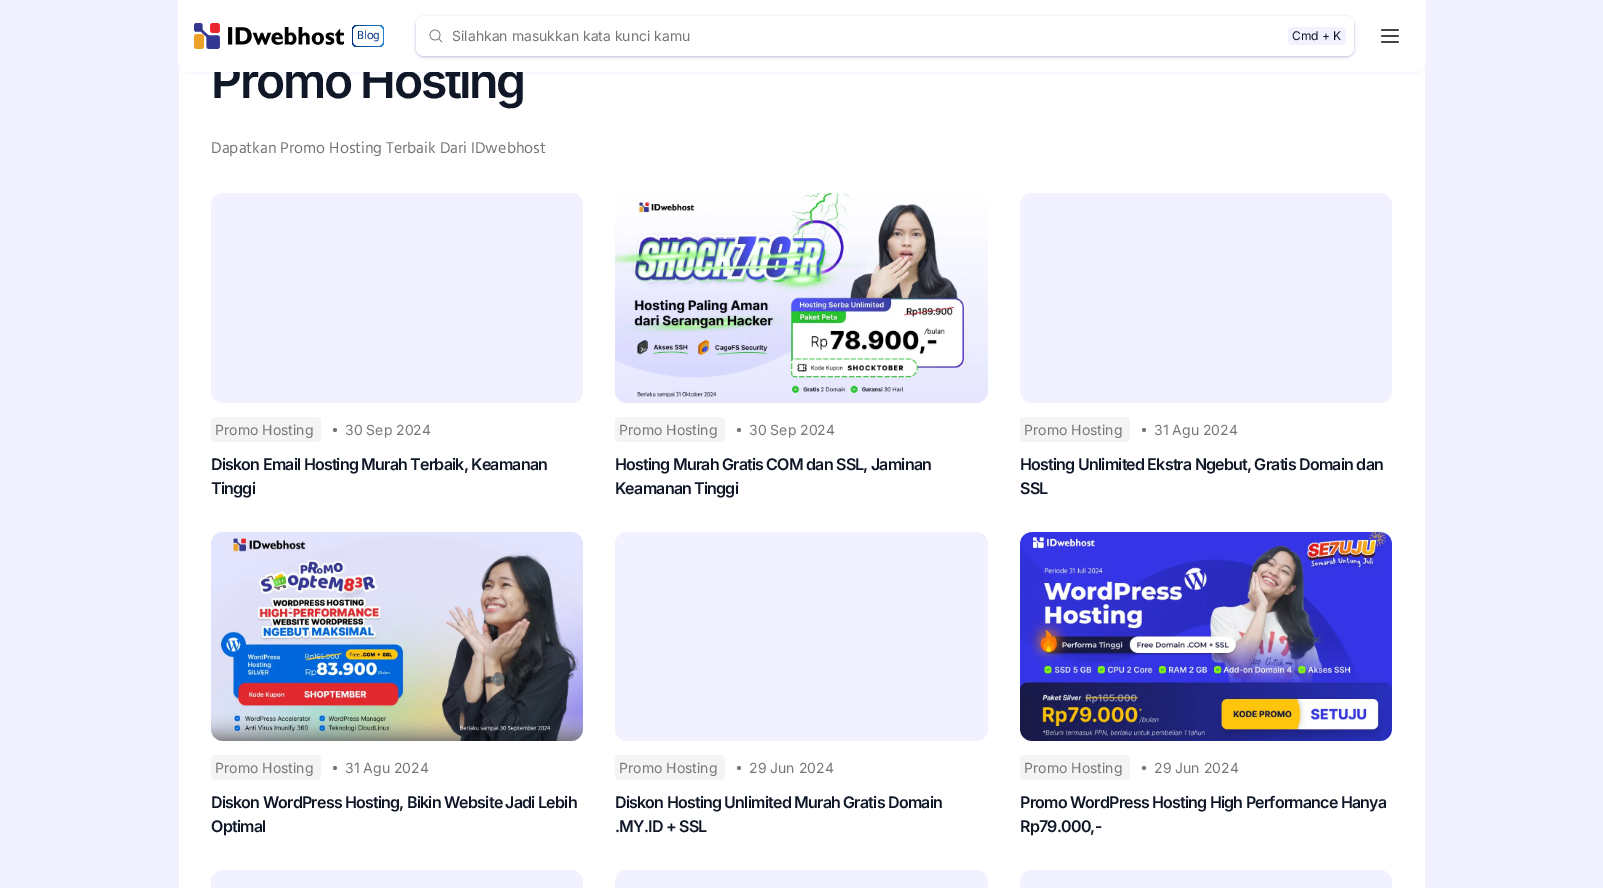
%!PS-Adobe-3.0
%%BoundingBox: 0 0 1603 888
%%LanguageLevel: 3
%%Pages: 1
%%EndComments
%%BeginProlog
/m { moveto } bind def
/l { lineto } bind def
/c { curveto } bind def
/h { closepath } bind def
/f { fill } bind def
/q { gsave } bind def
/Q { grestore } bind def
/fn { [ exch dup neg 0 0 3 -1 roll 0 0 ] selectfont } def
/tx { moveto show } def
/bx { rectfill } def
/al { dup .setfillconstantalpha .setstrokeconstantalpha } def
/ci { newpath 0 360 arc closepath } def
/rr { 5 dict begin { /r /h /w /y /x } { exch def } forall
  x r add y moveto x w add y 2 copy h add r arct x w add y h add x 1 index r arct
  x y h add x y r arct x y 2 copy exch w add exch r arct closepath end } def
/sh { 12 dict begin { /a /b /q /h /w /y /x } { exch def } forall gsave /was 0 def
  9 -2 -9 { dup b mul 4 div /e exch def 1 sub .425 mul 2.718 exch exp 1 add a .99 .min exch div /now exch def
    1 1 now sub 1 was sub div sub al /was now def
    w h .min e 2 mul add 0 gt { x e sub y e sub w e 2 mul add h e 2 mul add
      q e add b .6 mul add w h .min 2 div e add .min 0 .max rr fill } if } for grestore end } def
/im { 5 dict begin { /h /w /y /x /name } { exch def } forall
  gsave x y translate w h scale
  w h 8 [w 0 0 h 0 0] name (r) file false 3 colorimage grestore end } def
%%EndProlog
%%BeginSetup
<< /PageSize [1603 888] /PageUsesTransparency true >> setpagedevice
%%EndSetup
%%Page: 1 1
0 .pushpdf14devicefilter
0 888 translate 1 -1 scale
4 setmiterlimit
0.945 0.945 1 setrgbcolor
0 0 1603 888 bx
1 setgray
179 64 1246 824 bx
0.945 0.945 1 setrgbcolor
179 2 1246 70 11 1 1 sh
178 1 1248 72 12 1.5 1 sh
/Inter-SemiBold 48 fn
0.063 0.094 0.157 setrgbcolor
211 98 m -2.4 0 (Promo Hosting) ashow
1 setgray
178 0 m 1426 0 l 1426 60 l 1426 66.5 1420.5 72 1414 72 c 190 72 l 183.5 72 178 66.5 178 60 c h f
(image0.raw) 194 23 150 26 im
q 352 25 32 22 6 rr clip newpath
<< /ShadingType 2 /ColorSpace /DeviceRGB /Coords [352 36 384 36] /Extend [true true] /Function << /FunctionType 2 /Domain [0 1] /C0 [0 0.208 0.502] /C1 [0.118 0.506 0.824] /N 1 >> >> shfill Q
353 26 30 20 5 rr f
/Hind-Regular 12 fn
0 0.208 0.502 setrgbcolor
(Blog) 357 39 tx
0.769 0.769 0.882 setrgbcolor
417 18 936 38 7 1 1 sh
416 17 938 40 8 1.5 1 sh
1 setgray
416 16 938 40 8 rr f
(image1.raw) 429 29 14 14 im
/Inter-Regular 14 fn
0.467 setgray
(Silahkan masukkan kata kunci kamu) 452 41 tx
0.945 0.945 1 setrgbcolor
1288 27 58 18 4 rr f
/Inter-Regular 12 fn
0.063 0.094 0.157 setrgbcolor
(Cmd + K) 1292 40 tx
(image2.raw) 1381 29 18 14 im
/Hind-Regular 16 fn
0.467 setgray
(Dapatkan Promo Hosting Terbaik Dari IDwebhost) 211 153 tx
0.945 0.945 1 setrgbcolor
211 193 372 210 12 rr f
0.953 0.957 0.965 setrgbcolor
211 417 110 25 4 rr f
/Inter-Regular 14 fn
0.467 setgray
(Promo Hosting) 215 435 tx
335 430 2 ci f
(30 Sep 2024) 345 435 tx
/Inter-SemiBold 16 fn
0.063 0.094 0.157 setrgbcolor
211 470 m -0.8 0 (Diskon Email Hosting Murah Terbaik, Keamanan) ashow
211 494 m -0.8 0 (Tinggi) ashow
(image3.raw) 615 193 373 210 im
0.953 0.957 0.965 setrgbcolor
615 417 110 25 4 rr f
/Inter-Regular 14 fn
0.467 setgray
(Promo Hosting) 619 435 tx
739 430 2 ci f
(30 Sep 2024) 749 435 tx
/Inter-SemiBold 16 fn
0.063 0.094 0.157 setrgbcolor
615 470 m -0.8 0 (Hosting Murah Gratis COM dan SSL, Jaminan) ashow
615 494 m -0.8 0 (Keamanan Tinggi) ashow
0.945 0.945 1 setrgbcolor
1020 193 372 210 12 rr f
0.953 0.957 0.965 setrgbcolor
1020 417 110 25 4 rr f
/Inter-Regular 14 fn
0.467 setgray
(Promo Hosting) 1024 435 tx
1144 430 2 ci f
(31 Agu 2024) 1154 435 tx
/Inter-SemiBold 16 fn
0.063 0.094 0.157 setrgbcolor
1020 470 m -0.8 0 (Hosting Unlimited Ekstra Ngebut, Gratis Domain dan) ashow
1020 494 m -0.8 0 (SSL) ashow
(image4.raw) 211 532 372 209 im
0.953 0.957 0.965 setrgbcolor
211 755 110 25 4 rr f
/Inter-Regular 14 fn
0.467 setgray
(Promo Hosting) 215 773 tx
335 768 2 ci f
(31 Agu 2024) 345 773 tx
/Inter-SemiBold 16 fn
0.063 0.094 0.157 setrgbcolor
211 808 m -0.8 0 (Diskon WordPress Hosting, Bikin Website Jadi Lebih) ashow
211 832 m -0.8 0 (Optimal) ashow
0.945 0.945 1 setrgbcolor
615 532 373 209 12 rr f
0.953 0.957 0.965 setrgbcolor
615 755 110 25 4 rr f
/Inter-Regular 14 fn
0.467 setgray
(Promo Hosting) 619 773 tx
739 768 2 ci f
(29 Jun 2024) 749 773 tx
/Inter-SemiBold 16 fn
0.063 0.094 0.157 setrgbcolor
615 808 m -0.8 0 (Diskon Hosting Unlimited Murah Gratis Domain) ashow
615 832 m -0.8 0 (.MY.ID + SSL) ashow
(image5.raw) 1020 532 372 209 im
0.953 0.957 0.965 setrgbcolor
1020 755 110 25 4 rr f
/Inter-Regular 14 fn
0.467 setgray
(Promo Hosting) 1024 773 tx
1144 768 2 ci f
(29 Jun 2024) 1154 773 tx
/Inter-SemiBold 16 fn
0.063 0.094 0.157 setrgbcolor
1020 808 m -0.8 0 (Promo WordPress Hosting High Performance Hanya) ashow
1020 832 m -0.8 0 (Rp79.000,-) ashow
0.945 0.945 1 setrgbcolor
211 870 372 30 12 rr f
615 870 373 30 12 rr f
1020 870 372 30 12 rr f
.poppdf14devicefilter showpage
%%EOF
